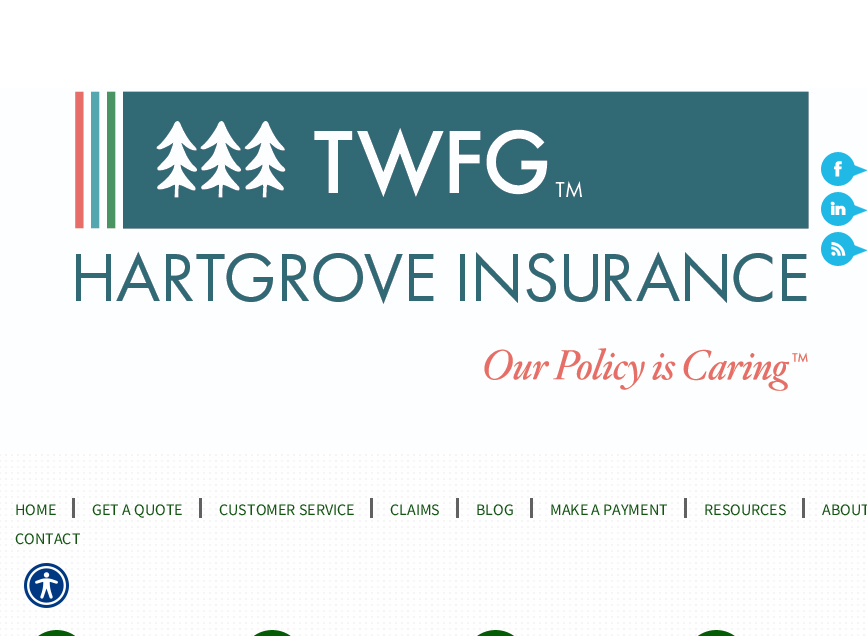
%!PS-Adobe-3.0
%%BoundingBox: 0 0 867 636
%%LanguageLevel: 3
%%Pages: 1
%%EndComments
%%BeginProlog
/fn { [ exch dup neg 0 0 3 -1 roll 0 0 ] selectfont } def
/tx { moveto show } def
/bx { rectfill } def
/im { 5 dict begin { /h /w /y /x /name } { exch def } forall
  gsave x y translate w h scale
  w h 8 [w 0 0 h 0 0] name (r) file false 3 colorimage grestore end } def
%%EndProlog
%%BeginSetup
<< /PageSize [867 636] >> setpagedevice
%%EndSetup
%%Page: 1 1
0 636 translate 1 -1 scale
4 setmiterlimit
1 setgray
0 0 867 636 bx
(image0.raw) 0 450 867 186 im
(image2.raw) 0 88 867 362 im
(image1.raw) 821 152 46 114 im
/SourceSansPro-Regular 16 fn
0.075 0.329 0.075 setrgbcolor
(HOME) 15 515 tx
0.38 setgray
72 498 3 20 bx
0.075 0.329 0.075 setrgbcolor
(GET A QUOTE) 92 515 tx
0.38 setgray
199 498 3 20 bx
0.075 0.329 0.075 setrgbcolor
(CUSTOMER SERVICE) 219 515 tx
0.38 setgray
370 498 3 20 bx
0.075 0.329 0.075 setrgbcolor
(CLAIMS) 390 515 tx
0.38 setgray
456 498 3 20 bx
0.075 0.329 0.075 setrgbcolor
(BLOG) 476 515 tx
0.38 setgray
530 498 3 20 bx
0.075 0.329 0.075 setrgbcolor
(MAKE A PAYMENT) 550 515 tx
0.38 setgray
684 498 3 20 bx
0.075 0.329 0.075 setrgbcolor
(RESOURCES) 704 515 tx
0.38 setgray
802 498 3 20 bx
0.075 0.329 0.075 setrgbcolor
(ABOUT) 822 515 tx
(CONTACT) 15 544 tx
(image3.raw) 38 630 37 6 im
(image4.raw) 253 630 38 6 im
(image5.raw) 477 630 37 6 im
(image6.raw) 698 630 37 6 im
(image7.raw) 24 563 45 45 im
showpage
%%EOF
